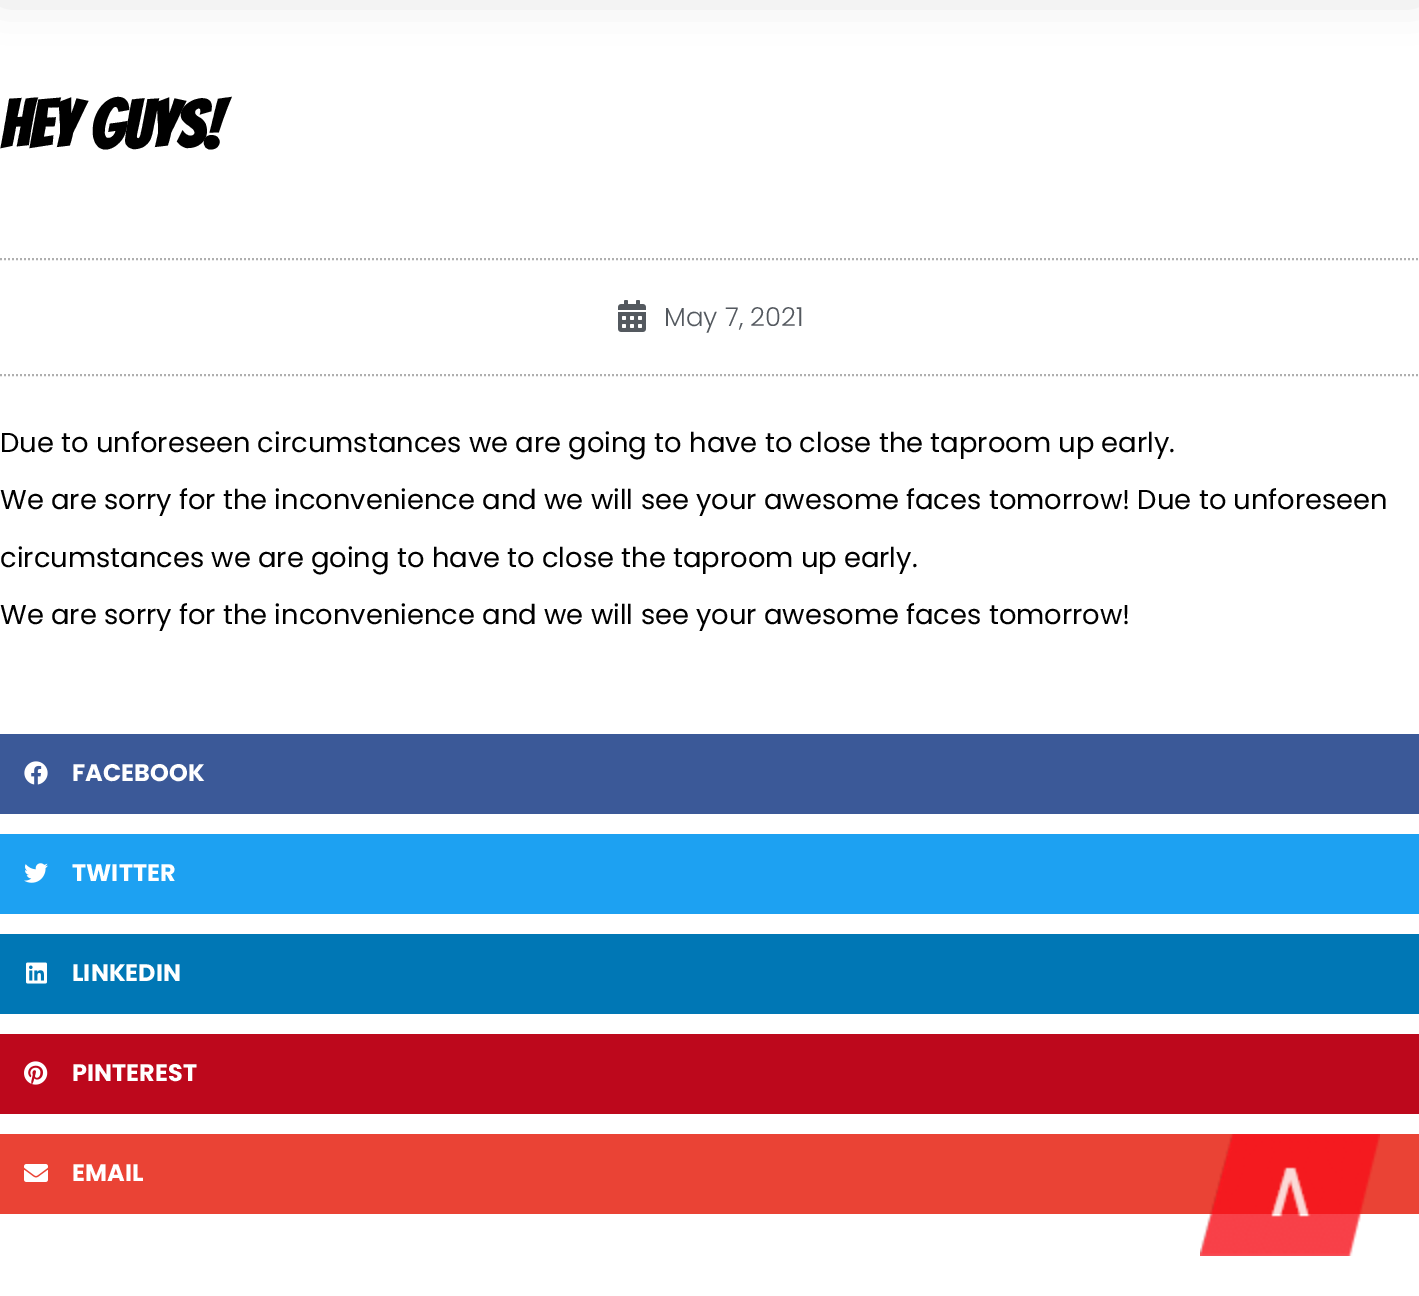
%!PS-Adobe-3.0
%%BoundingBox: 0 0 1419 1296
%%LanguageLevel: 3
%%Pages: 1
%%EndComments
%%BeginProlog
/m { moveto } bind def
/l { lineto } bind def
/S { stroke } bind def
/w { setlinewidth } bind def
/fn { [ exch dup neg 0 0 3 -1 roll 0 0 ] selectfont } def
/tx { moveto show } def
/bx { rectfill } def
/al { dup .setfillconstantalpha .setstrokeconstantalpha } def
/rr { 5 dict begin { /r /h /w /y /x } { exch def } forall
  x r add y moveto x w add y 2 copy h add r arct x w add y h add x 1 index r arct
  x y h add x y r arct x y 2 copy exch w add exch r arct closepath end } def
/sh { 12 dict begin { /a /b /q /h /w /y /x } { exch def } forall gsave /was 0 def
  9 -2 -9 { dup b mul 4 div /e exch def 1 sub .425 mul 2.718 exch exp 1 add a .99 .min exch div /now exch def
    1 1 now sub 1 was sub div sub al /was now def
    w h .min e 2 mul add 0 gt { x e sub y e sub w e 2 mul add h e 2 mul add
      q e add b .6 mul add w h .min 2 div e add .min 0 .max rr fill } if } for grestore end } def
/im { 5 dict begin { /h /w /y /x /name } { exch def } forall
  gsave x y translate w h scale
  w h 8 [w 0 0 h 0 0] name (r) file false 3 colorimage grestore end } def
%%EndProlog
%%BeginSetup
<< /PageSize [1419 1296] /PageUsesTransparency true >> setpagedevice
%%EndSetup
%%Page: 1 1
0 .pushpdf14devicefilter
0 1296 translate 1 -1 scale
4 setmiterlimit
1 setgray
0 0 1419 1296 bx
0 setgray
0 -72 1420 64 0 24 0.15 sh
/Bangers-Bold 66 fn
(Hey guys!) 0 148 tx
0.686 setgray
2 w
[2 2] 0 setdash
0 259 m 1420 259 l S
0 375 m 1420 375 l S
(image0.raw) 618 300 28 32 im
/Poppins-Light 26 fn
0.329 0.349 0.373 setrgbcolor
(May 7, 2021) 664 326 tx
/Poppins-Regular 27.35 fn
0 setgray
(Due to unforeseen circumstances we are going to have to close the taproom up early.) 0 452 tx
(We are sorry for the inconvenience and we will see your awesome faces tomorrow! Due to unforeseen) 0 509 tx
(circumstances we are going to have to close the taproom up early.) 0 567 tx
(We are sorry for the inconvenience and we will see your awesome faces tomorrow!) 0 624 tx
0.231 0.349 0.596 setrgbcolor
0 734 1419 80 bx
(image1.raw) 24 761 24 24 im
/Poppins-Bold 24 fn
1 setgray
(FACEBOOK) 72 781 tx
0.114 0.631 0.949 setrgbcolor
0 834 1419 80 bx
(image2.raw) 24 863 24 20 im
1 setgray
(TWITTER) 72 881 tx
0 0.467 0.71 setrgbcolor
0 934 1419 80 bx
(image3.raw) 26 962 21 22 im
1 setgray
(LINKEDIN) 72 981 tx
0.741 0.031 0.11 setrgbcolor
0 1034 1419 80 bx
(image4.raw) 24 1061 24 24 im
1 setgray
(PINTEREST) 72 1081 tx
0.918 0.263 0.208 setrgbcolor
0 1134 1419 80 bx
(image5.raw) 24 1164 24 18 im
1 setgray
(EMAIL) 72 1181 tx
(image6.raw) 1200 1134 180 122 im
.poppdf14devicefilter showpage
%%EOF
